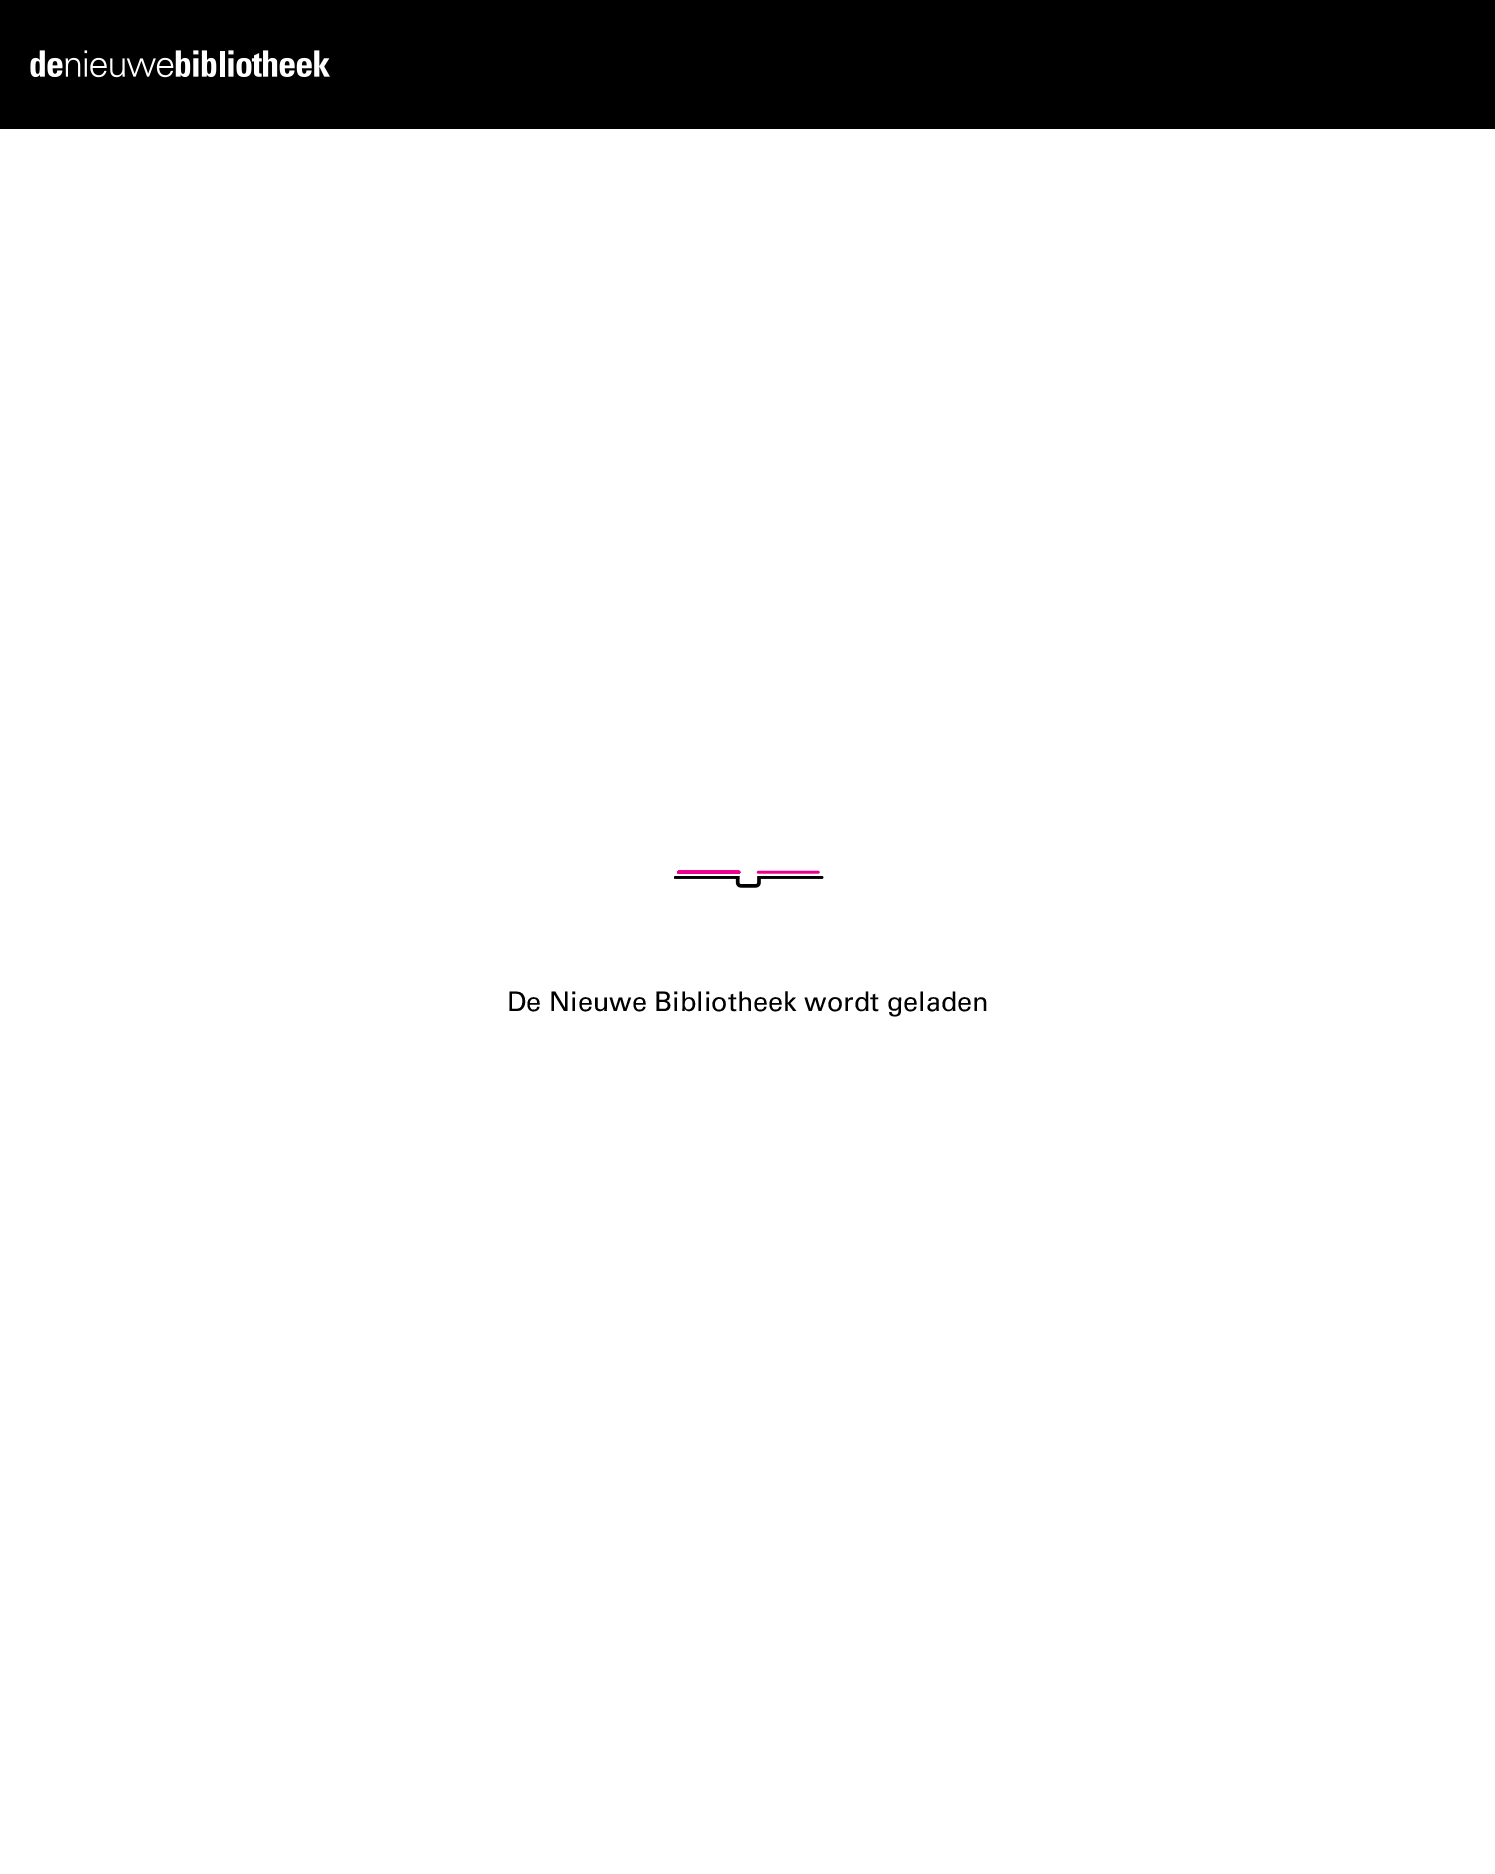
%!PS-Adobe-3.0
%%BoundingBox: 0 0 1495 1874
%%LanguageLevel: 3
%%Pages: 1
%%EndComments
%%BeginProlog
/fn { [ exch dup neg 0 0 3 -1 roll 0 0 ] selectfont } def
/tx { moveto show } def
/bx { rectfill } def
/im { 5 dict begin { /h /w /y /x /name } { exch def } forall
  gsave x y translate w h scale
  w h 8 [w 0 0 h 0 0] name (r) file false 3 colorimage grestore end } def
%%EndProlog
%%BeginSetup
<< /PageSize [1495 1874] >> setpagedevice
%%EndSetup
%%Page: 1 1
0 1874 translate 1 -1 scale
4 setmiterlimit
1 setgray
0 0 1495 1874 bx
0 setgray
0 0 1495 129 bx
(image0.raw) 30 50 300 28 im
(image1.raw) 674 870 150 18 im
/Univers-Regular 27 fn
(De Nieuwe Bibliotheek wordt geladen) 507 1011 tx
showpage
%%EOF
